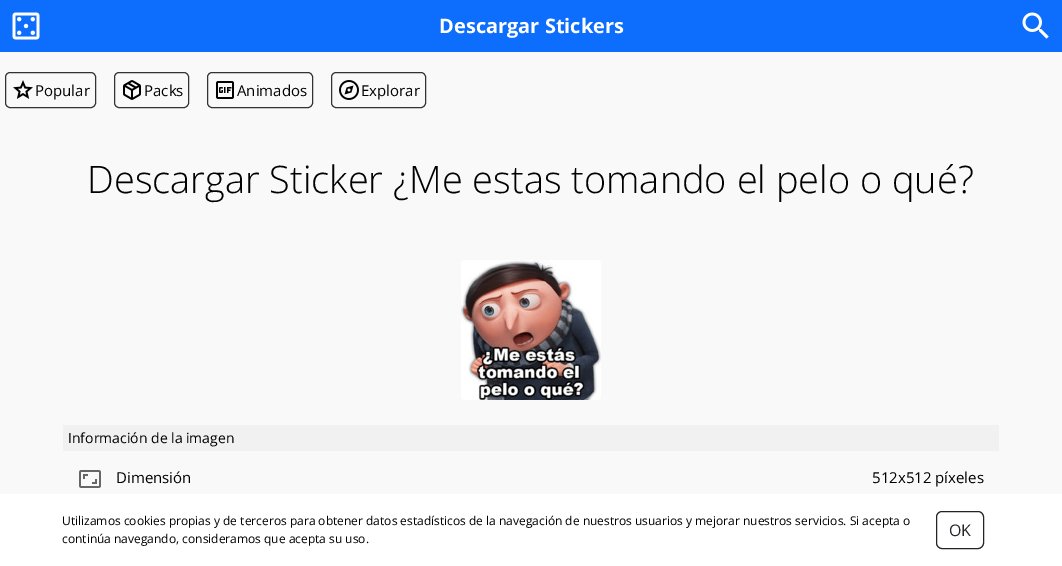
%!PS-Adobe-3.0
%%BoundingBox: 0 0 1062 566
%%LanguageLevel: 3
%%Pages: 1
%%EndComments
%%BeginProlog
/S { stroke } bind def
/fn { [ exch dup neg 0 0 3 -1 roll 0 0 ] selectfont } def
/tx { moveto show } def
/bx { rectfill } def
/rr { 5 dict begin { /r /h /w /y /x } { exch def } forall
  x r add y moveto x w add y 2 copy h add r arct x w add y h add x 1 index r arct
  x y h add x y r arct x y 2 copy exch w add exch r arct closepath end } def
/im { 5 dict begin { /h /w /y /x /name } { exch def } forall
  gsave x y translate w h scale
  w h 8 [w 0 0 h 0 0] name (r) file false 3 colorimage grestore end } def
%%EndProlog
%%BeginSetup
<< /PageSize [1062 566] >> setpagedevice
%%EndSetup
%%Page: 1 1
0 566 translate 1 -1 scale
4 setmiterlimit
0.976 setgray
0 0 1062 566 bx
0.051 0.431 0.992 setrgbcolor
0 0 1062 52 bx
(image0.raw) 12 12 28 28 im
/OpenSans-Bold 20 fn
1 setgray
(Descargar Stickers) 439 33 tx
(image1.raw) 1022 12 27 27 im
0.2 setgray
5.5 72.5 90 35 4.5 rr S
(image2.raw) 13 80 20 19 im
/OpenSans-Regular 15 fn
0 setgray
(Popular) 35 96 tx
0.2 setgray
114.5 72.5 74 35 4.5 rr S
(image3.raw) 123 80 18 20 im
0 setgray
(Packs) 144 96 tx
0.2 setgray
207.5 72.5 105 35 4.5 rr S
(image4.raw) 216 81 18 18 im
0 setgray
(Animados) 237 96 tx
0.2 setgray
331.5 72.5 94 35 4.5 rr S
(image5.raw) 339 80 20 20 im
0 setgray
(Explorar) 361 96 tx
/OpenSans-Light 37.9 fn
(Descargar Sticker ¿Me estas tomando el pelo o qué?) 87 193 tx
(image6.raw) 461 260 140 140 im
0.945 setgray
63 425 936 26 bx
/OpenSans-Regular 14 fn
0 setgray
(Información de la imagen) 68 443 tx
(image7.raw) 79 470 22 18 im
/OpenSans-Regular 15 fn
(Dimensión) 116 483 tx
(512x512 píxeles) 872 483 tx
1 setgray
0 494 1062 72 bx
/OpenSans-Regular 12 fn
0 setgray
(Utilizamos cookies propias y de terceros para obtener datos estadísticos de la navegación de nuestros usuarios y mejorar nuestros servicios. Si acepta o) 62 525 tx
(continúa navegando, consideramos que acepta su uso.) 62 543 tx
0.129 0.145 0.161 setrgbcolor
936.5 511.5 47 37 5.5 rr S
/OpenSans-Regular 16 fn
(OK) 949 536 tx
showpage
%%EOF
